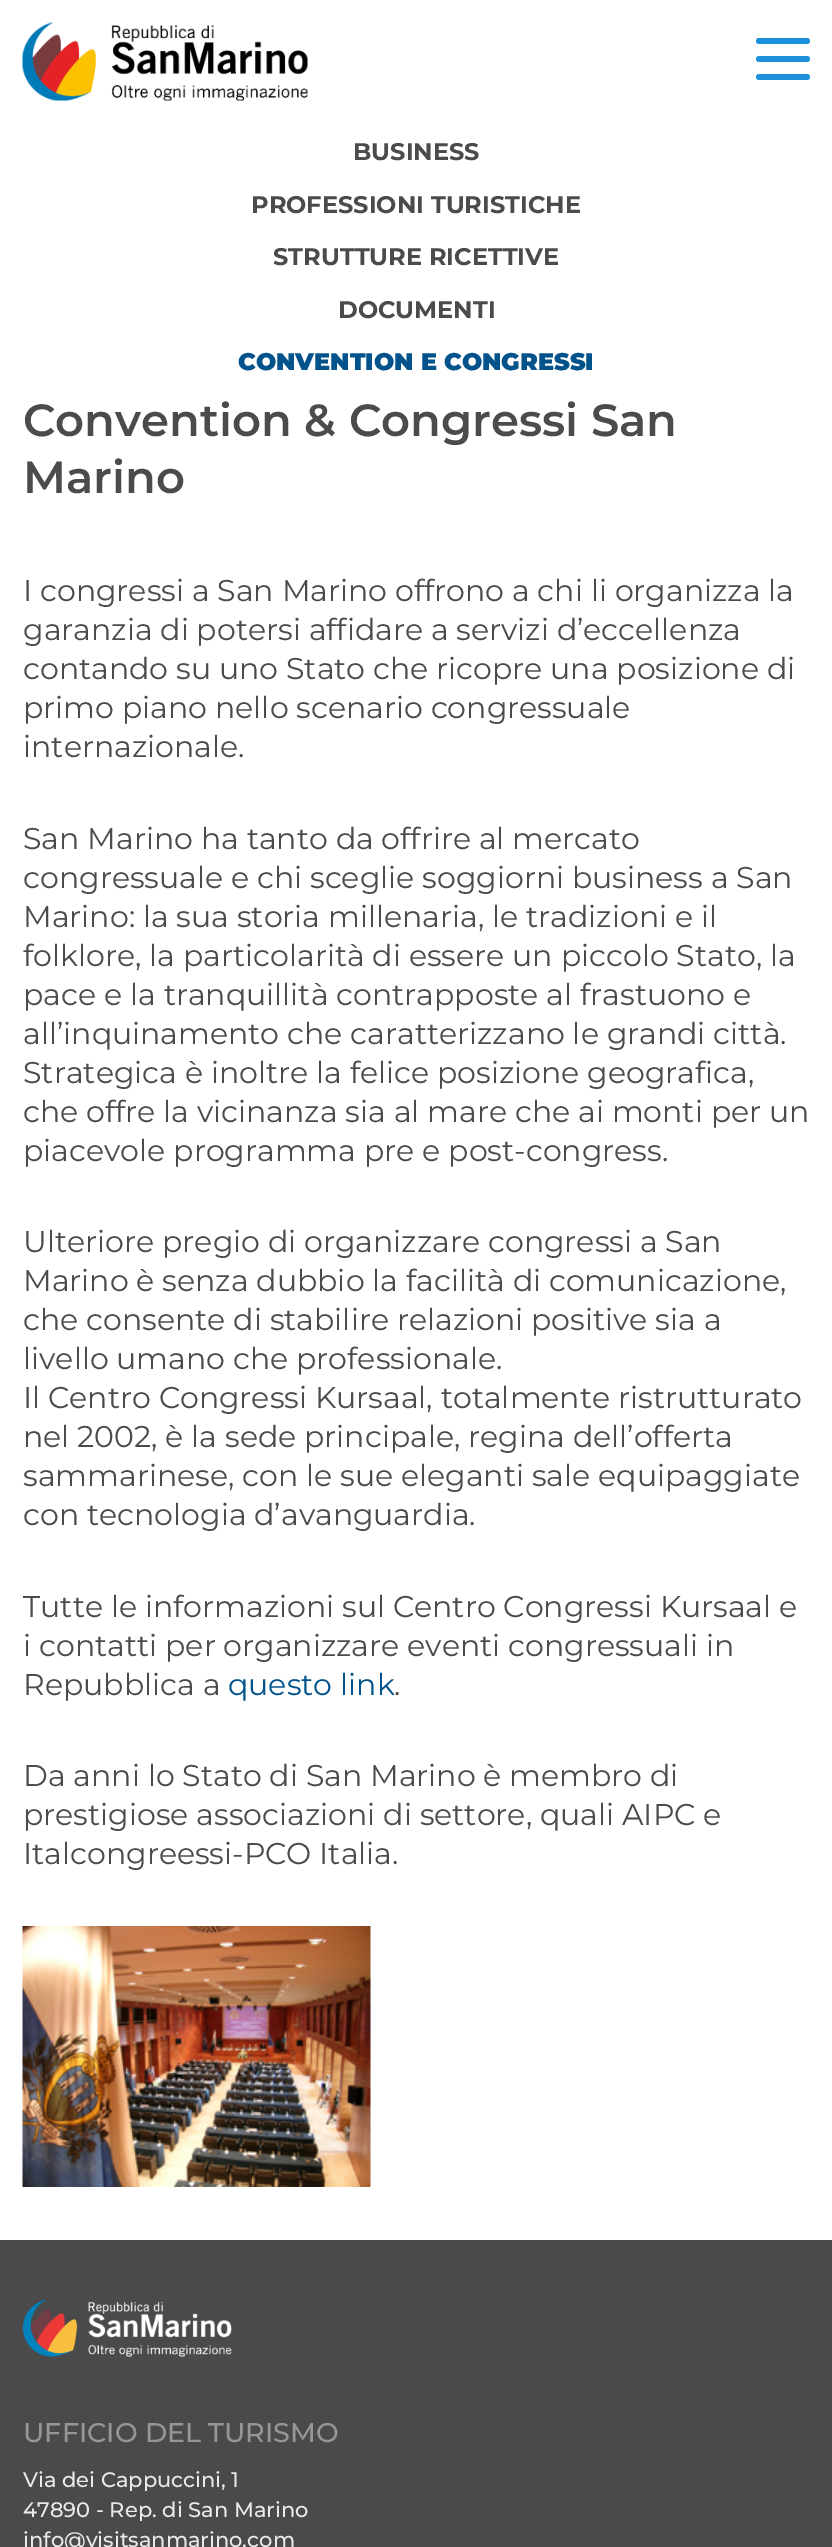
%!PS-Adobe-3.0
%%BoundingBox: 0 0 832 2547
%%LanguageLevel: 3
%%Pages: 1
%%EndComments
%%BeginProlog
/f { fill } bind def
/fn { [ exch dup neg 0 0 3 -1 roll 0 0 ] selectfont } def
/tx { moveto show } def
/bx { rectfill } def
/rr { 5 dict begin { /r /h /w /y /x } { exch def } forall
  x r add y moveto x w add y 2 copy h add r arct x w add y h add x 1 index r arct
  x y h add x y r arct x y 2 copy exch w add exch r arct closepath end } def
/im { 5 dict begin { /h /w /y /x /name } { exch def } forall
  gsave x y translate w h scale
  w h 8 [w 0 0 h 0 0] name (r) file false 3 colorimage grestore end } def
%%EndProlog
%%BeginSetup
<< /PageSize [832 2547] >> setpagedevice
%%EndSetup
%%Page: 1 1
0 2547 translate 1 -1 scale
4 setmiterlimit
1 setgray
0 0 832 2547 bx
(image0.raw) 22 22 286 79 im
0.114 0.569 0.871 setrgbcolor
756 38 54 6 3 rr f
756 56 54 6 3 rr f
756 74 54 6 3 rr f
/Montserrat-Bold 24 fn
0.294 setgray
(BUSINESS) 353 160 tx
(PROFESSIONI TURISTICHE) 251 213 tx
(STRUTTURE RICETTIVE) 273 265 tx
(DOCUMENTI) 338 318 tx
/Montserrat-Black 24 fn
0.008 0.325 0.545 setrgbcolor
(CONVENTION E CONGRESSI) 238 370 tx
/Montserrat-SemiBold 45 fn
0.294 setgray
(Convention & Congressi San) 23 436 tx
(Marino) 23 493 tx
/Montserrat-Regular 30 fn
(I congressi a San Marino offrono a chi li organizza la) 23 601 tx
(garanzia di potersi affidare a servizi d’eccellenza) 23 640 tx
(contando su uno Stato che ricopre una posizione di) 23 679 tx
(primo piano nello scenario congressuale) 23 718 tx
(internazionale.) 23 757 tx
(San Marino ha tanto da offrire al mercato) 23 849 tx
(congressuale e chi sceglie soggiorni business a San) 23 888 tx
(Marino: la sua storia millenaria, le tradizioni e il) 23 927 tx
(folklore, la particolarità di essere un piccolo Stato, la) 23 966 tx
(pace e la tranquillità contrapposte al frastuono e) 23 1005 tx
(all’inquinamento che caratterizzano le grandi città.) 23 1044 tx
(Strategica è inoltre la felice posizione geografica,) 23 1083 tx
(che offre la vicinanza sia al mare che ai monti per un) 23 1122 tx
(piacevole programma pre e post-congress.) 23 1161 tx
(Ulteriore pregio di organizzare congressi a San) 23 1252 tx
(Marino è senza dubbio la facilità di comunicazione,) 23 1291 tx
(che consente di stabilire relazioni positive sia a) 23 1330 tx
(livello umano che professionale.) 23 1369 tx
(Il Centro Congressi Kursaal, totalmente ristrutturato) 23 1408 tx
(nel 2002, è la sede principale, regina dell’offerta) 23 1447 tx
(sammarinese, con le sue eleganti sale equipaggiate) 23 1486 tx
(con tecnologia d’avanguardia.) 23 1525 tx
(Tutte le informazioni sul Centro Congressi Kursaal e) 23 1617 tx
(i contatti per organizzare eventi congressuali in) 23 1656 tx
(Repubblica a) 23 1695 tx
0.008 0.325 0.545 setrgbcolor
(questo link) 228 1695 tx
0.294 setgray
(.) 394 1695 tx
(Da anni lo Stato di San Marino è membro di) 23 1786 tx
(prestigiose associazioni di settore, quali AIPC e) 23 1825 tx
(Italcongreessi-PCO Italia.) 23 1864 tx
(image1.raw) 22 1926 349 261 im
0.29 setgray
0 2240 832 307 bx
(image2.raw) 22 2299 210 58 im
/Montserrat-Medium 27 fn
0.588 setgray
(UFFICIO DEL TURISMO) 23 2442 tx
/Montserrat-Medium 21 fn
0.918 setgray
(Via dei Cappuccini, 1) 23 2487 tx
(47890 - Rep. di San Marino) 23 2517 tx
(info@visitsanmarino.com) 23 2547 tx
showpage
%%EOF
